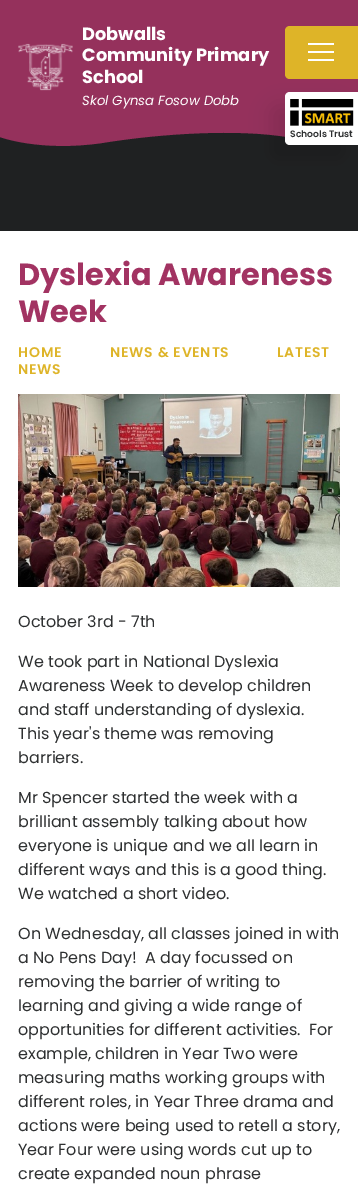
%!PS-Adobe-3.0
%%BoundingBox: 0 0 358 1196
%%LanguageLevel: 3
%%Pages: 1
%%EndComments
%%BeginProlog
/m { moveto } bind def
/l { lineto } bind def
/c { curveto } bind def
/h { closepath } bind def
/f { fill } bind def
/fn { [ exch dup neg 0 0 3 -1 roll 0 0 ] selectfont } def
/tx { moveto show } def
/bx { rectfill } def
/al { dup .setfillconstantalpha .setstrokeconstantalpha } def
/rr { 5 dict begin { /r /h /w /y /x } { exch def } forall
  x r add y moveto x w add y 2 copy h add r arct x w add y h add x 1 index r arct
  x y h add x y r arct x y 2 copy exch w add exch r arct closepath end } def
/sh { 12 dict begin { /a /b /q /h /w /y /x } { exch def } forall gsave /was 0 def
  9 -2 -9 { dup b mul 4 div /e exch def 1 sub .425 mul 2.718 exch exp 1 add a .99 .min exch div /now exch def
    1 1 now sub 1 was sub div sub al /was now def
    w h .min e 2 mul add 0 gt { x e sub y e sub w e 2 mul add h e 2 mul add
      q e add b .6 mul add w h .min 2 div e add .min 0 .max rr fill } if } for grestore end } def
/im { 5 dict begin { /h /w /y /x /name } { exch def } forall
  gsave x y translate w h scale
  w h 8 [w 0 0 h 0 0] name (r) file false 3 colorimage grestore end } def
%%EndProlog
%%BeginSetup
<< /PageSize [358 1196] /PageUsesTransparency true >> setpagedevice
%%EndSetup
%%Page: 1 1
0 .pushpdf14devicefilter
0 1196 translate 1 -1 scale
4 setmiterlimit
1 setgray
0 0 358 1196 bx
0.584 0.192 0.361 setrgbcolor
0 0 358 131 bx
0.122 0.129 0.133 setrgbcolor
0 132 358 99 bx
0.584 0.192 0.361 setrgbcolor
287 137 m 239 129 163 133 102 143 c 40 152 0 137 0 137 c 0 131 l 358 131 l 358 131 336 144 287 137 c h f
(image0.raw) 18 43 55 48 im
/Poppins-Bold 17.75 fn
1 setgray
(Dobwalls) 82 40 tx
(Community Primary) 82 61 tx
(School) 82 83 tx
/Poppins-Italic 13.25 fn
(Skol Gynsa Fosow Dobb) 82 105 tx
0 setgray
271 106 73 53 5 10 0.1 sh
0.871 0.706 0.157 setrgbcolor
290 26 m 358 26 l 358 79 l 290 79 l 287 79 285 77 285 74 c 285 31 l 285 28 287 26 290 26 c h f
1 setgray
308 43 26 2 bx
308 51 26 2 bx
308 59 26 2 bx
290 92 m 358 92 l 358 145 l 290 145 l 287 145 285 143 285 140 c 285 97 l 285 94 287 92 290 92 c h f
(image1.raw) 290 99 64 27 im
/Poppins-SemiBold 9.25 fn
0.18 0.188 0.192 setrgbcolor
(Schools Trust) 290 137 tx
/Poppins-Bold 30.5 fn
0.635 0.2 0.384 setrgbcolor
(Dyslexia Awareness) 18 285 tx
(Week) 18 322 tx
/Poppins-SemiBold 14 fn
0.871 0.706 0.157 setrgbcolor
18 357 m 0.75 0 (HOME) ashow
110 357 m 0.75 0 (NEWS & EVENTS) ashow
277 357 m 0.75 0 (LATEST) ashow
18 374 m 0.75 0 (NEWS) ashow
(image2.raw) 18 394 322 193 im
/Poppins-Regular 16 fn
0.18 0.188 0.192 setrgbcolor
(October 3rd - 7th) 18 627 tx
(We took part in National Dyslexia) 18 667 tx
(Awareness Week to develop children) 18 691 tx
(and staff understanding of dyslexia.) 18 715 tx
(This year's theme was removing) 18 739 tx
(barriers.) 18 763 tx
(Mr Spencer started the week with a) 18 803 tx
(brilliant assembly talking about how) 18 827 tx
(everyone is unique and we all learn in) 18 851 tx
(different ways and this is a good thing.) 18 875 tx
(We watched a short video.) 18 899 tx
(On Wednesday, all classes joined in with) 18 939 tx
(a No Pens Day!  A day focussed on) 18 963 tx
(removing the barrier of writing to) 18 987 tx
(learning and giving a wide range of) 18 1011 tx
(opportunities for different activities.  For) 18 1035 tx
(example, children in Year Two were) 18 1059 tx
(measuring maths working groups with) 18 1083 tx
(different roles, in Year Three drama and) 18 1107 tx
(actions were being used to retell a story,) 18 1131 tx
(Year Four were using words cut up to) 18 1155 tx
(create expanded noun phrase) 18 1179 tx
.poppdf14devicefilter showpage
%%EOF
